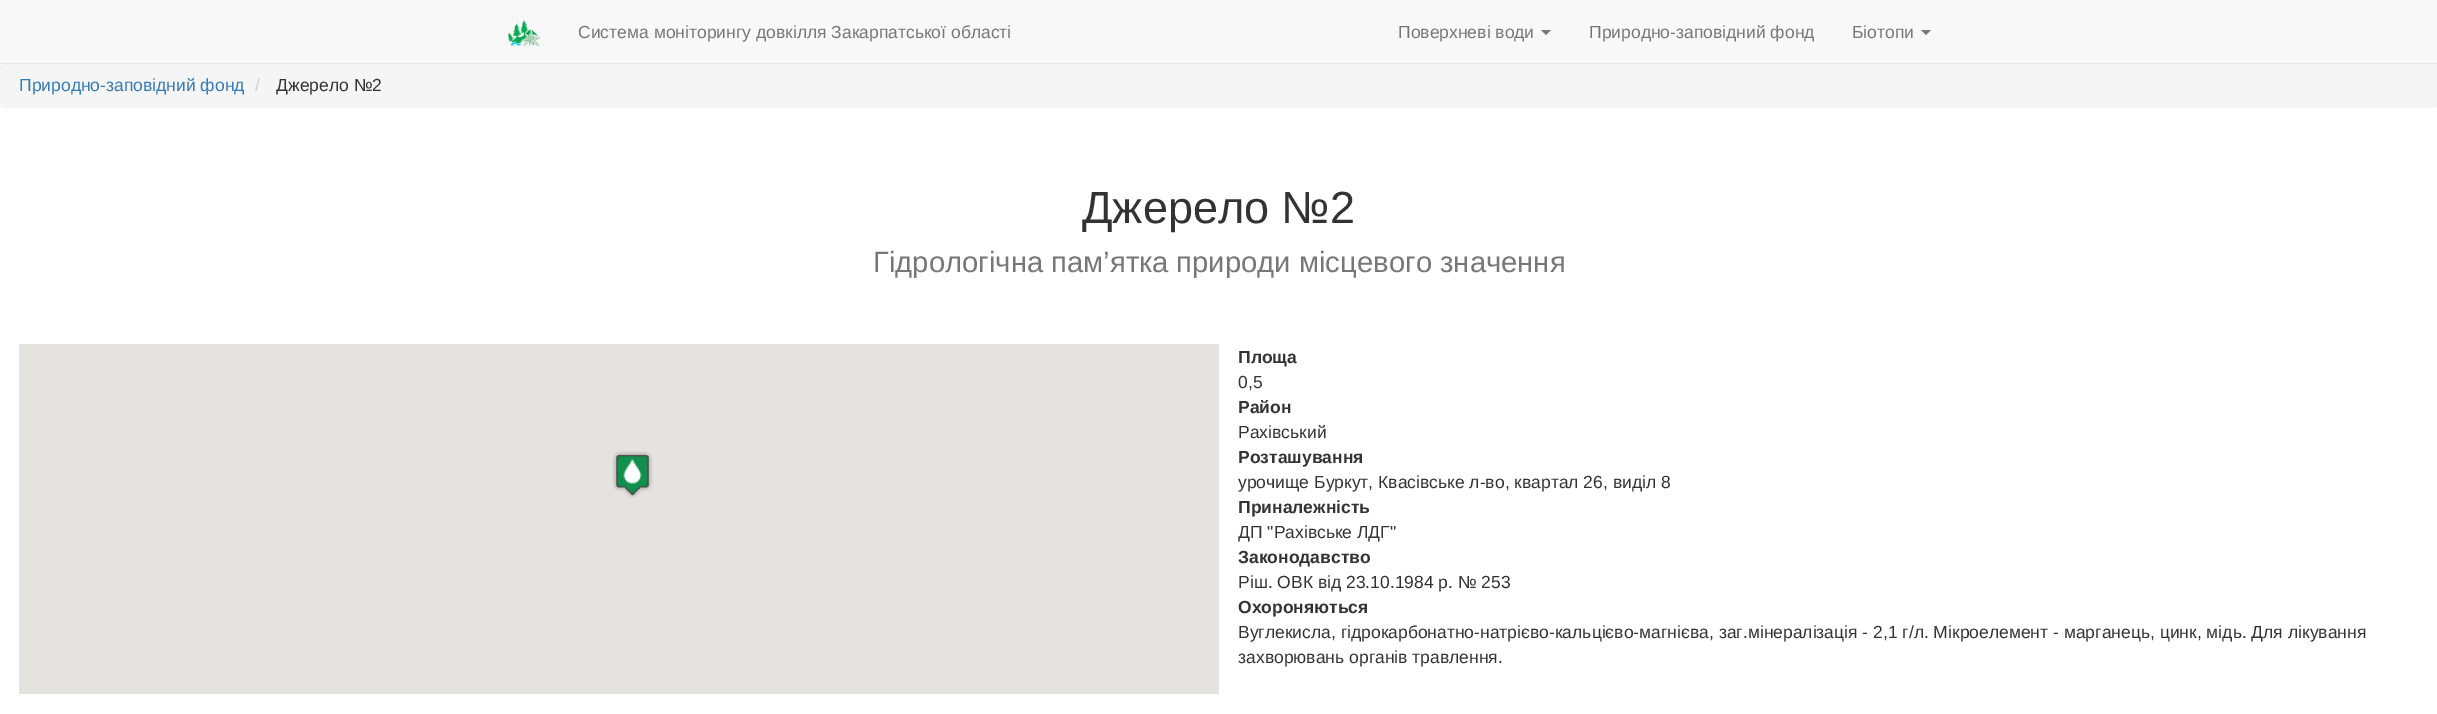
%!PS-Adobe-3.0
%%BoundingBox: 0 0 2437 714
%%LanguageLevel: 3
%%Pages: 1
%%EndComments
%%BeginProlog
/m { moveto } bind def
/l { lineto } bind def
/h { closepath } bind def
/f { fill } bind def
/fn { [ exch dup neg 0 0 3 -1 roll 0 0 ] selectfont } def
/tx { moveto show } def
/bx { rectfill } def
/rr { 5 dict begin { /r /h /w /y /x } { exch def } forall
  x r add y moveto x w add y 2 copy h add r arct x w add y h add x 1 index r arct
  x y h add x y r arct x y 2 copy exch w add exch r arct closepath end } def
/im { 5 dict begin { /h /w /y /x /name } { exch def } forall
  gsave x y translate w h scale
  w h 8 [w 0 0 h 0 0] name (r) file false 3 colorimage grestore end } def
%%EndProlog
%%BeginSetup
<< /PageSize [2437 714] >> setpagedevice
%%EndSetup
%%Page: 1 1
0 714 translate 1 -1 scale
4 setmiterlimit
1 setgray
0 0 2437 714 bx
0.973 setgray
0 0 2437 63 bx
0.961 setgray
0 63 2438 45 5 rr f
0.906 setgray
0 63 2437 1 bx
(image0.raw) 507 19 33 27 im
/LiberationSans-Regular 17.5 fn
0.467 setgray
(Cистема моніторингу довкілля Закарпатської області) 578 38 tx
(Поверхневі води) 1398 38 tx
1541 30 m 1551 30 l 1546 35 l h f
(Природно-заповідний фонд) 1589 38 tx
(Біотопи) 1852 38 tx
1921 30 m 1931 30 l 1926 35 l h f
0.2 0.478 0.718 setrgbcolor
(Природно-заповідний фонд) 19 91 tx
0.8 setgray
(/) 255 91 tx
0.2 setgray
(Джерело №2) 276 91 tx
/LiberationSans-Regular 45 fn
(Джерело №2) 1082 223 tx
/LiberationSans-Regular 29.25 fn
0.467 setgray
(Гідрологічна пам’ятка природи місцевого значення) 873 272 tx
0.898 0.89 0.875 setrgbcolor
19 344 1200 350 bx
(image1.raw) 612 451 41 47 im
/LiberationSans-Bold 17.5 fn
0.2 setgray
(Площа) 1238 363 tx
/LiberationSans-Regular 17.5 fn
(0,5) 1238 388 tx
/LiberationSans-Bold 17.5 fn
(Район) 1238 413 tx
/LiberationSans-Regular 17.5 fn
(Рахівський) 1238 438 tx
/LiberationSans-Bold 17.5 fn
(Розташування) 1238 463 tx
/LiberationSans-Regular 17.5 fn
(урочище Буркут, Квасівське л-во, квартал 26, виділ 8) 1238 488 tx
/LiberationSans-Bold 17.5 fn
(Приналежність) 1238 513 tx
/LiberationSans-Regular 17.5 fn
(ДП "Рахівське ЛДГ") 1238 538 tx
/LiberationSans-Bold 17.5 fn
(Законодавство) 1238 563 tx
/LiberationSans-Regular 17.5 fn
(Ріш. ОВК від 23.10.1984 р. № 253) 1238 588 tx
/LiberationSans-Bold 17.5 fn
(Охороняються) 1238 613 tx
/LiberationSans-Regular 17.5 fn
(Вуглекисла, гідрокарбонатно-натрієво-кальцієво-магнієва, заг.мінералізація - 2,1 г/л. Мікроелемент - марганець, цинк, мідь. Для лікування) 1238 638 tx
(захворювань органів травлення.) 1238 663 tx
showpage
%%EOF
